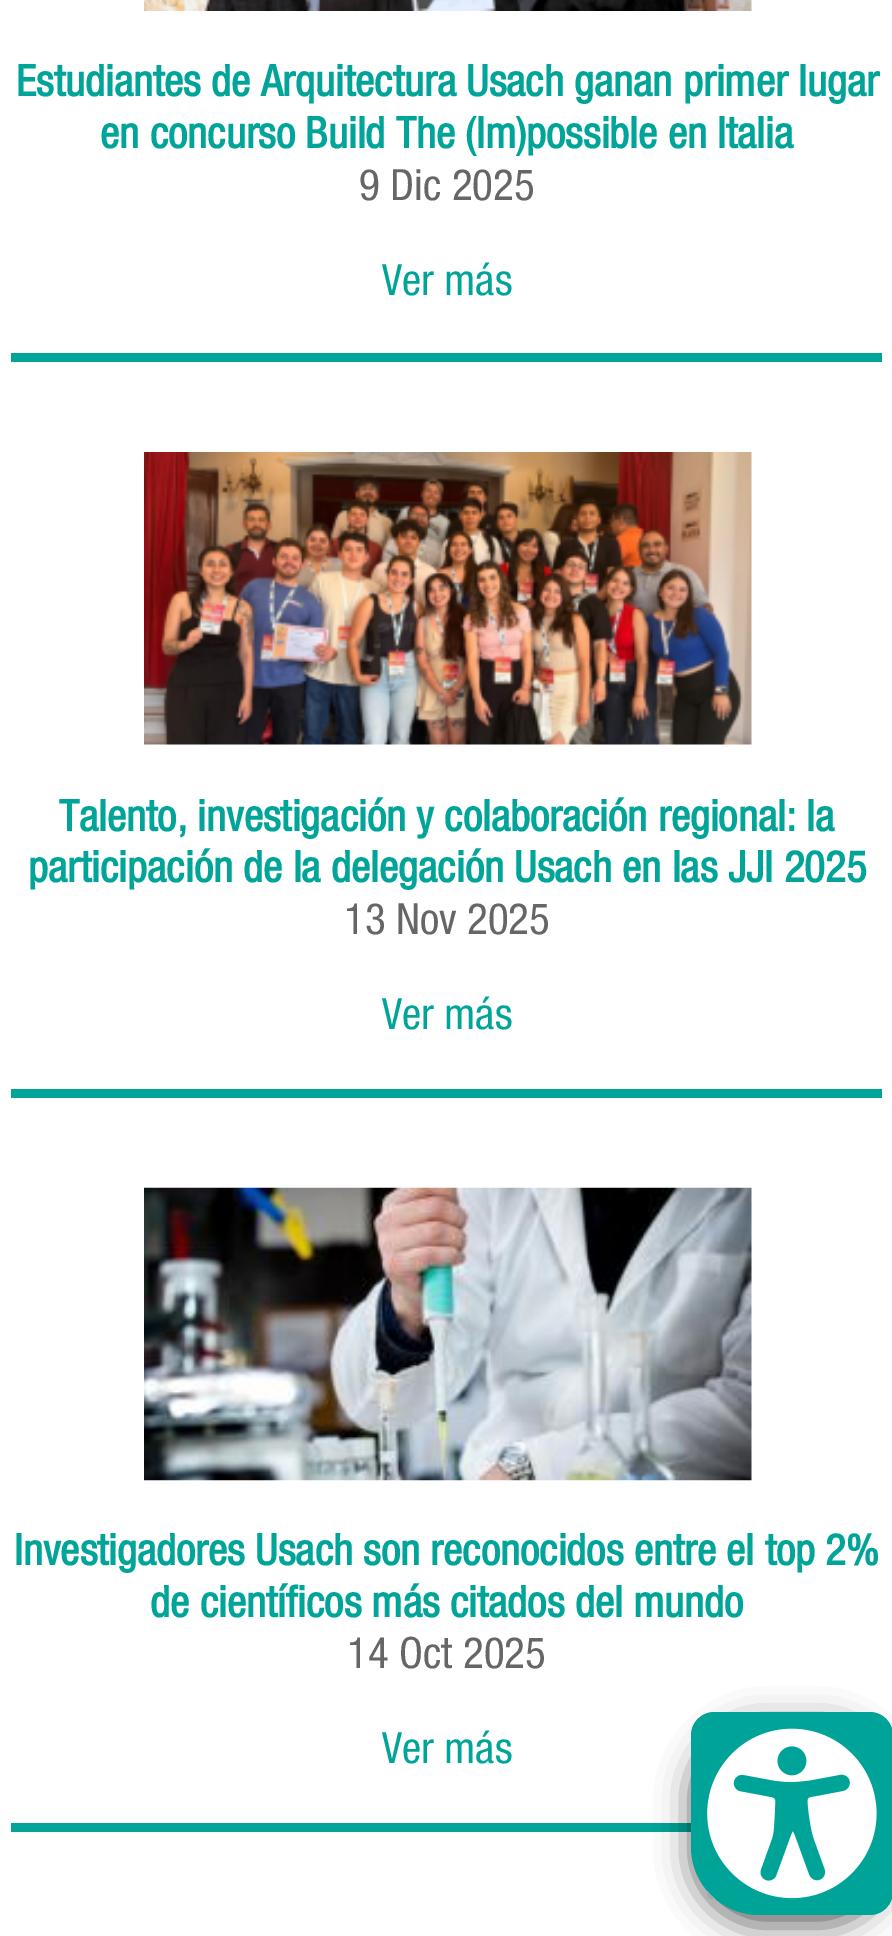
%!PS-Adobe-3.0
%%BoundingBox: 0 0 892 1936
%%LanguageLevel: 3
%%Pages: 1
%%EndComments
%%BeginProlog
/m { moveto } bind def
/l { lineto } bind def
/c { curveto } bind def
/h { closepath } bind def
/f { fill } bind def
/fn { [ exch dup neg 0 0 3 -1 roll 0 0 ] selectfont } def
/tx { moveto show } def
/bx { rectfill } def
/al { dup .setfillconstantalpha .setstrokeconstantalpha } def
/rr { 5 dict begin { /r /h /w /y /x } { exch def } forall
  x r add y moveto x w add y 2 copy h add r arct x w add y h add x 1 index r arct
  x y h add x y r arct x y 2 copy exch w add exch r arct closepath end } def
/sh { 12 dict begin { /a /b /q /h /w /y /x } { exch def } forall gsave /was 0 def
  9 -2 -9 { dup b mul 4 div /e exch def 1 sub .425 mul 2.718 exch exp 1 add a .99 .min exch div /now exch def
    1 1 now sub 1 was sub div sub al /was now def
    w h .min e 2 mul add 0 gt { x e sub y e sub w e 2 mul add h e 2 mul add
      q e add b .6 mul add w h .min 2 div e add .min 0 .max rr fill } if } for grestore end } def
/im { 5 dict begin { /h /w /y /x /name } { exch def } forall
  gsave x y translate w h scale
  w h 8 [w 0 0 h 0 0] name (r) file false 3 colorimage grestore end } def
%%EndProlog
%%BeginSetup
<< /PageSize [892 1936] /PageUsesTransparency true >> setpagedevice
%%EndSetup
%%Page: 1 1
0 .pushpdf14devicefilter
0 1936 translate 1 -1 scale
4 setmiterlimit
1 setgray
0 0 892 1936 bx
0 0.643 0.6 setrgbcolor
11 353 871 9 bx
(image0.raw) 144 0 608 11 im
/HelveticaNeue-Bold 43.2 fn
(Estudiantes de Arquitectura Usach ganan primer lugar) 16 96 tx
(en concurso Build The \(Im\)possible en Italia) 100 148 tx
/HelveticaNeue-Regular 43.2 fn
0.4 setgray
(9 Dic 2025) 359 200 tx
0 0.643 0.6 setrgbcolor
(Ver más) 382 295 tx
11 1089 871 9 bx
(image1.raw) 144 452 608 293 im
/HelveticaNeue-Bold 43.2 fn
(Talento, investigación y colaboración regional: la) 59 831 tx
(participación de la delegación Usach en las JJI 2025) 28 882 tx
/HelveticaNeue-Regular 43.2 fn
0.4 setgray
(13 Nov 2025) 344 934 tx
0 0.643 0.6 setrgbcolor
(Ver más) 382 1029 tx
11 1823 680 9 bx
(image2.raw) 144 1187 608 294 im
/HelveticaNeue-Bold 43.2 fn
(Investigadores Usach son reconocidos entre el top 2%) 14 1565 tx
(de científicos más citados del mundo) 150 1617 tx
/HelveticaNeue-Regular 43.2 fn
0.4 setgray
(14 Oct 2025) 347 1668 tx
0 0.643 0.6 setrgbcolor
(Ver más) 382 1763 tx
0 setgray
691 1724 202 202 68 17 0.6 sh
0 0.639 0.596 setrgbcolor
714 1712 m 870 1712 l 882.5 1712 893 1722.5 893 1735 c 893 1892 l 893 1904.5 882.5 1915 870 1915 c 759 1915 l 721.5 1915 691 1884.5 691 1847 c 691 1735 l 691 1722.5 701.5 1712 714 1712 c h f
(image3.raw) 707 1728 170 171 im
.poppdf14devicefilter showpage
%%EOF
